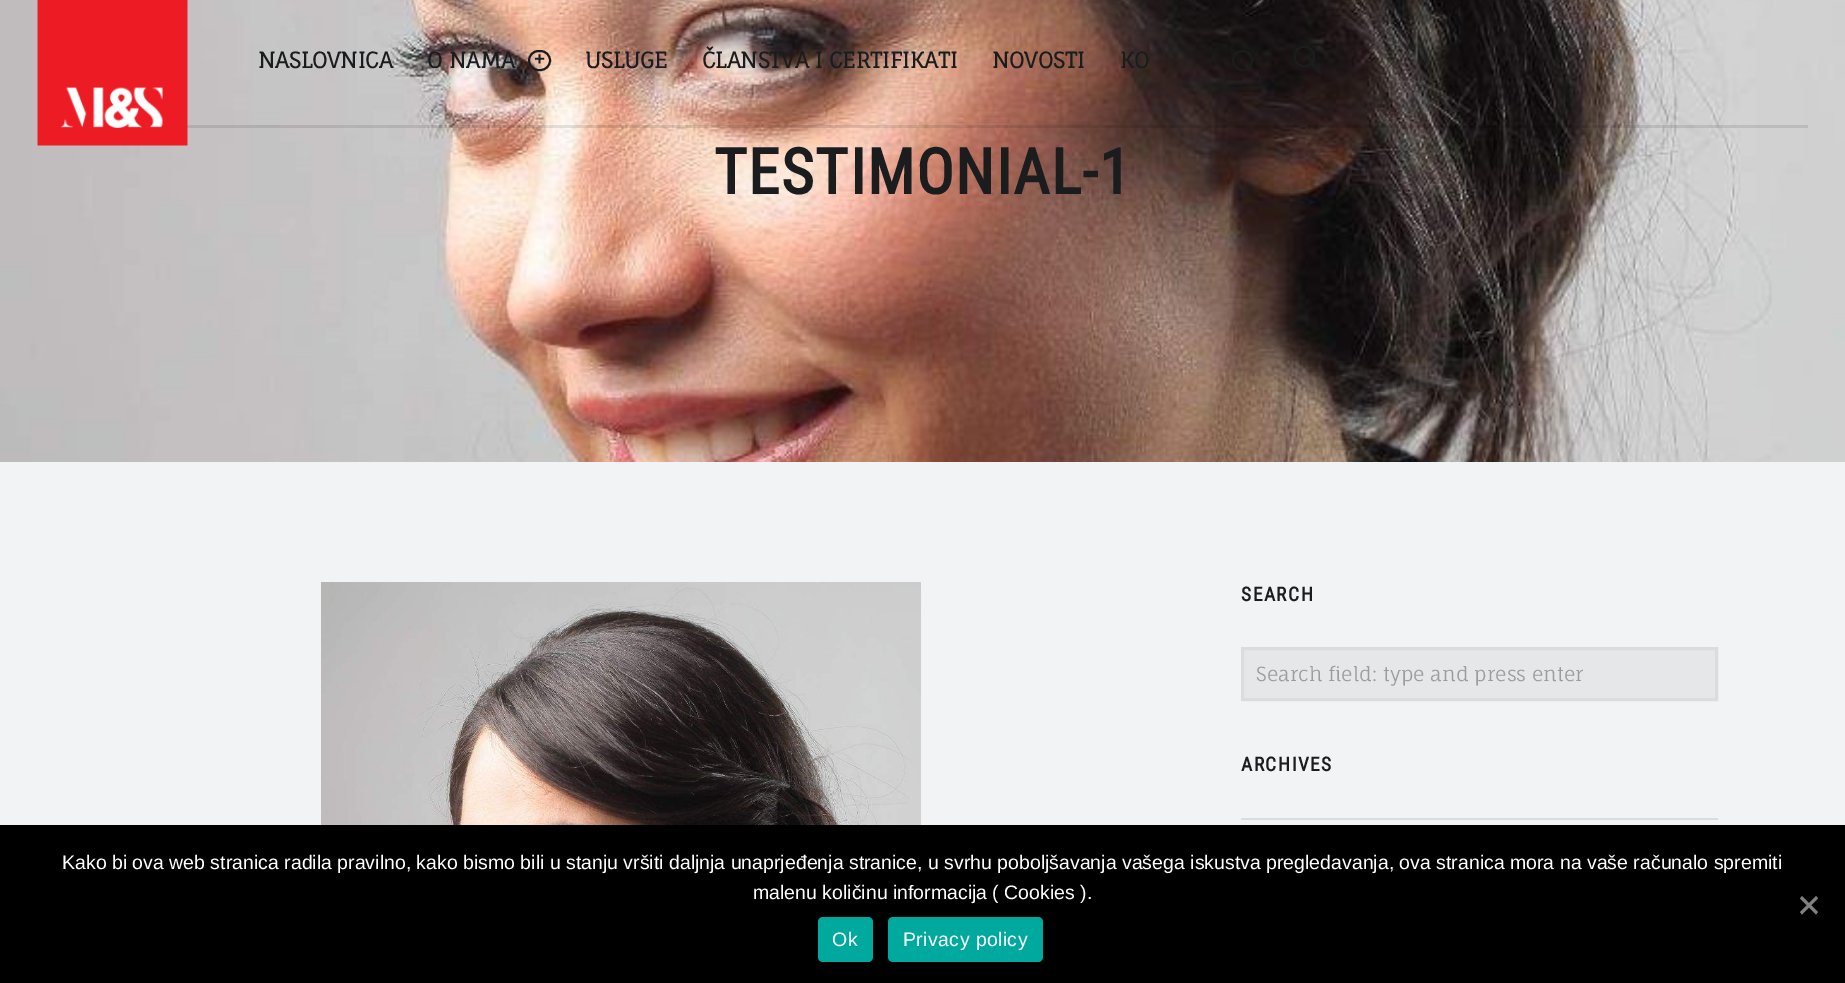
%!PS-Adobe-3.0
%%BoundingBox: 0 0 1845 983
%%LanguageLevel: 3
%%Pages: 1
%%EndComments
%%BeginProlog
/m { moveto } bind def
/l { lineto } bind def
/h { closepath } bind def
/f { fill } bind def
/S { stroke } bind def
/q { gsave } bind def
/Q { grestore } bind def
/w { setlinewidth } bind def
/fn { [ exch dup neg 0 0 3 -1 roll 0 0 ] selectfont } def
/tx { moveto show } def
/bx { rectfill } def
/al { dup .setfillconstantalpha .setstrokeconstantalpha } def
/ci { newpath 0 360 arc closepath } def
/rr { 5 dict begin { /r /h /w /y /x } { exch def } forall
  x r add y moveto x w add y 2 copy h add r arct x w add y h add x 1 index r arct
  x y h add x y r arct x y 2 copy exch w add exch r arct closepath end } def
/im { 5 dict begin { /h /w /y /x /name } { exch def } forall
  gsave x y translate w h scale
  w h 8 [w 0 0 h 0 0] name (r) file false 3 colorimage grestore end } def
%%EndProlog
%%BeginSetup
<< /PageSize [1845 983] /PageUsesTransparency true >> setpagedevice
%%EndSetup
%%Page: 1 1
0 .pushpdf14devicefilter
0 983 translate 1 -1 scale
4 setmiterlimit
0.945 0.953 0.961 setrgbcolor
0 0 1845 983 bx
(image2.raw) 0 0 1845 462 im
0.1 al
0 setgray
187 125 1621 3 bx
1 al
(image0.raw) 37 0 151 146 im
/FaunaOne-Bold 21.6 fn
0.102 0.11 0.118 setrgbcolor
(NASLOVNICA) 258 68 tx
(O NAMA) 427 68 tx
2 w
529 51 21 19 9.5 rr S
(+) 533 67 tx
(USLUGE) 585 68 tx
(ČLANSTVA I CERTIFIKATI) 702 68 tx
(NOVOSTI) 992 68 tx
(KO) 1120 68 tx
1242.5 60.5 9.5 ci S
(image1.raw) 1293 45 29 29 im
/RobotoCondensed-Bold 63 fn
714 194 m 1.5 0 (TESTIMONIAL-1) ashow
(image3.raw) 321 582 600 243 im
/RobotoCondensed-Bold 19.4 fn
1241 601 m 1.5 0 (SEARCH) ashow
0.898 0.906 0.914 setrgbcolor
1242.5 648.5 m 1716.5 648.5 l 1716.5 699.5 l 1242.5 699.5 l h q f Q
0.855 0.863 0.871 setrgbcolor
3 w
S
/FaunaOne-Regular 19.4 fn
0.604 0.612 0.62 setrgbcolor
(Search field: type and press enter) 1256 681 tx
/RobotoCondensed-Bold 19.4 fn
0.102 0.11 0.118 setrgbcolor
1241 771 m 1.5 0 (ARCHIVES) ashow
0.855 0.863 0.871 setrgbcolor
1241 818 477 2 bx
0 setgray
0 825 1845 158 bx
/LiberationSans-Regular 19.5 fn
1 setgray
(Kako bi ova web stranica radila pravilno, kako bismo bili u stanju vršiti daljnja unaprjeđenja stranice, u svrhu poboljšavanja vašega iskustva pregledavanja, ova stranica mora na vaše računalo spremiti) 62 869 tx
(malenu količinu informacija \( Cookies \).) 753 899 tx
0.502 setgray
1816 896 m 1818 898.5 l 1802 914.5 l 1800 912 l h f
1800 898.5 m 1802 896 l 1818 912 l 1816 914.5 l h f
0 0.663 0.616 setrgbcolor
818 917 55 45 5 rr f
1 setgray
832 946 m 0.4 0 (Ok) ashow
0 0.663 0.616 setrgbcolor
888 917 155 45 5 rr f
1 setgray
903 946 m 0.4 0 (Privacy policy) ashow
.poppdf14devicefilter showpage
%%EOF
